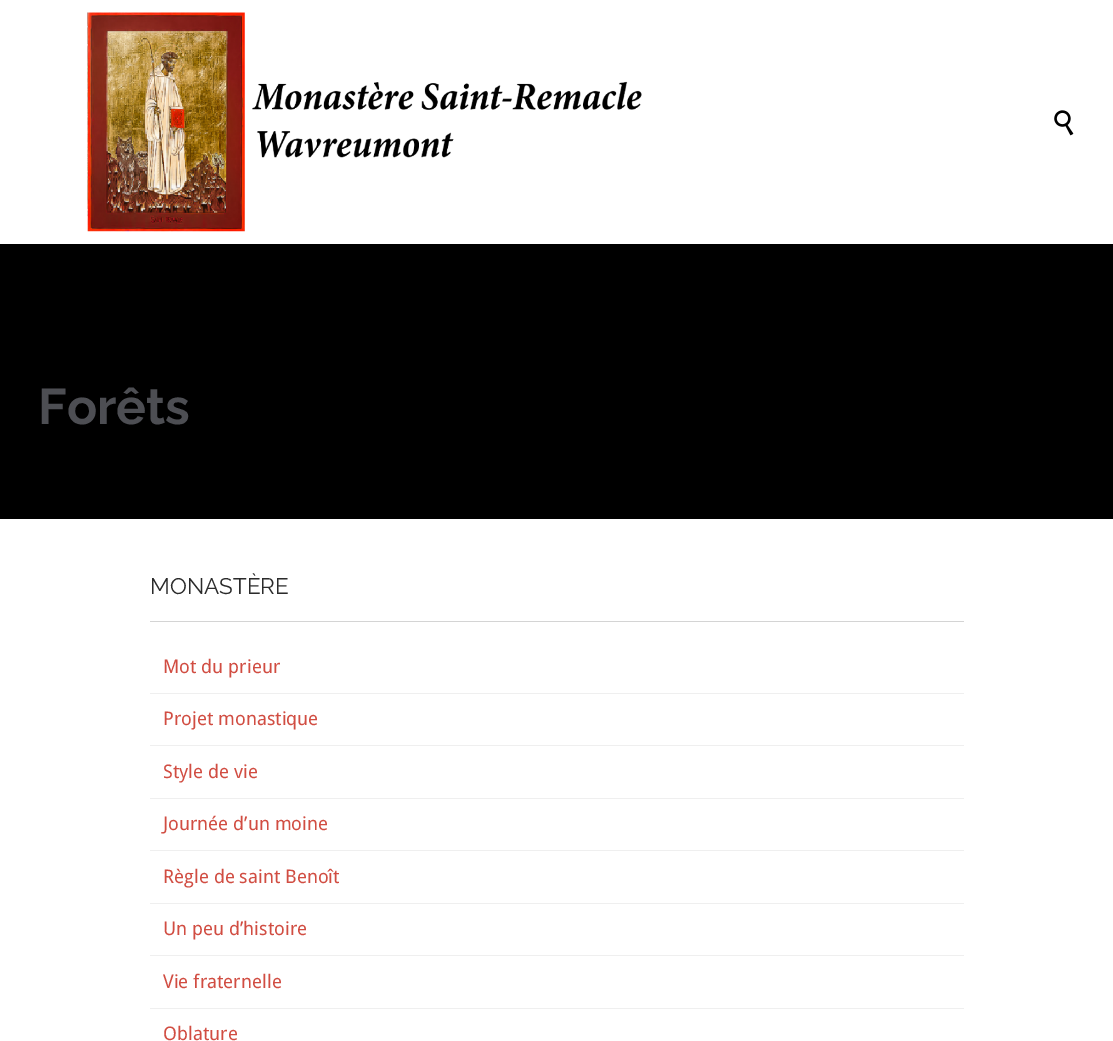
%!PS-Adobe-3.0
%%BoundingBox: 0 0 1113 1041
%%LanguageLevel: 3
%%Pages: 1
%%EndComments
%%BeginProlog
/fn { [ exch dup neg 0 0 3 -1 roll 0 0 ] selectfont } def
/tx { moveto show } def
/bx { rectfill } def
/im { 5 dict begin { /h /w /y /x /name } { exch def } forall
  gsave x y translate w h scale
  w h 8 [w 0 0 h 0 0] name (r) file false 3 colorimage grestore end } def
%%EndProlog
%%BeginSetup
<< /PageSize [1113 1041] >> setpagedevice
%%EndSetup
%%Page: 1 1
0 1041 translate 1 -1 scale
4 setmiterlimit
0 setgray
0 0 1113 1041 bx
1 setgray
0 0 1113 244 bx
(image0.raw) 87 12 555 220 im
(image1.raw) 1054 110 20 26 im
/Raleway-Bold 50 fn
0.302 0.306 0.325 setrgbcolor
(Forêts) 38 424 tx
1 setgray
0 519 1113 522 bx
0.831 setgray
150 621 814 1 bx
/Raleway-Regular 22.5 fn
0.169 setgray
(MONASTÈRE) 150 594 tx
0.937 setgray
150 693 814 1 bx
/DroidSans-Regular 18.75 fn
0.82 0.302 0.259 setrgbcolor
(Mot du prieur) 163 673 tx
0.937 setgray
150 745 814 1 bx
0.82 0.302 0.259 setrgbcolor
(Projet monastique) 163 725 tx
0.937 setgray
150 798 814 1 bx
0.82 0.302 0.259 setrgbcolor
(Style de vie) 163 778 tx
0.937 setgray
150 850 814 1 bx
0.82 0.302 0.259 setrgbcolor
(Journée d’un moine) 163 830 tx
0.937 setgray
150 903 814 1 bx
0.82 0.302 0.259 setrgbcolor
(Règle de saint Benoît) 163 883 tx
0.937 setgray
150 955 814 1 bx
0.82 0.302 0.259 setrgbcolor
(Un peu d’histoire) 163 935 tx
0.937 setgray
150 1008 814 1 bx
0.82 0.302 0.259 setrgbcolor
(Vie fraternelle) 163 988 tx
(Oblature) 163 1040 tx
showpage
%%EOF
